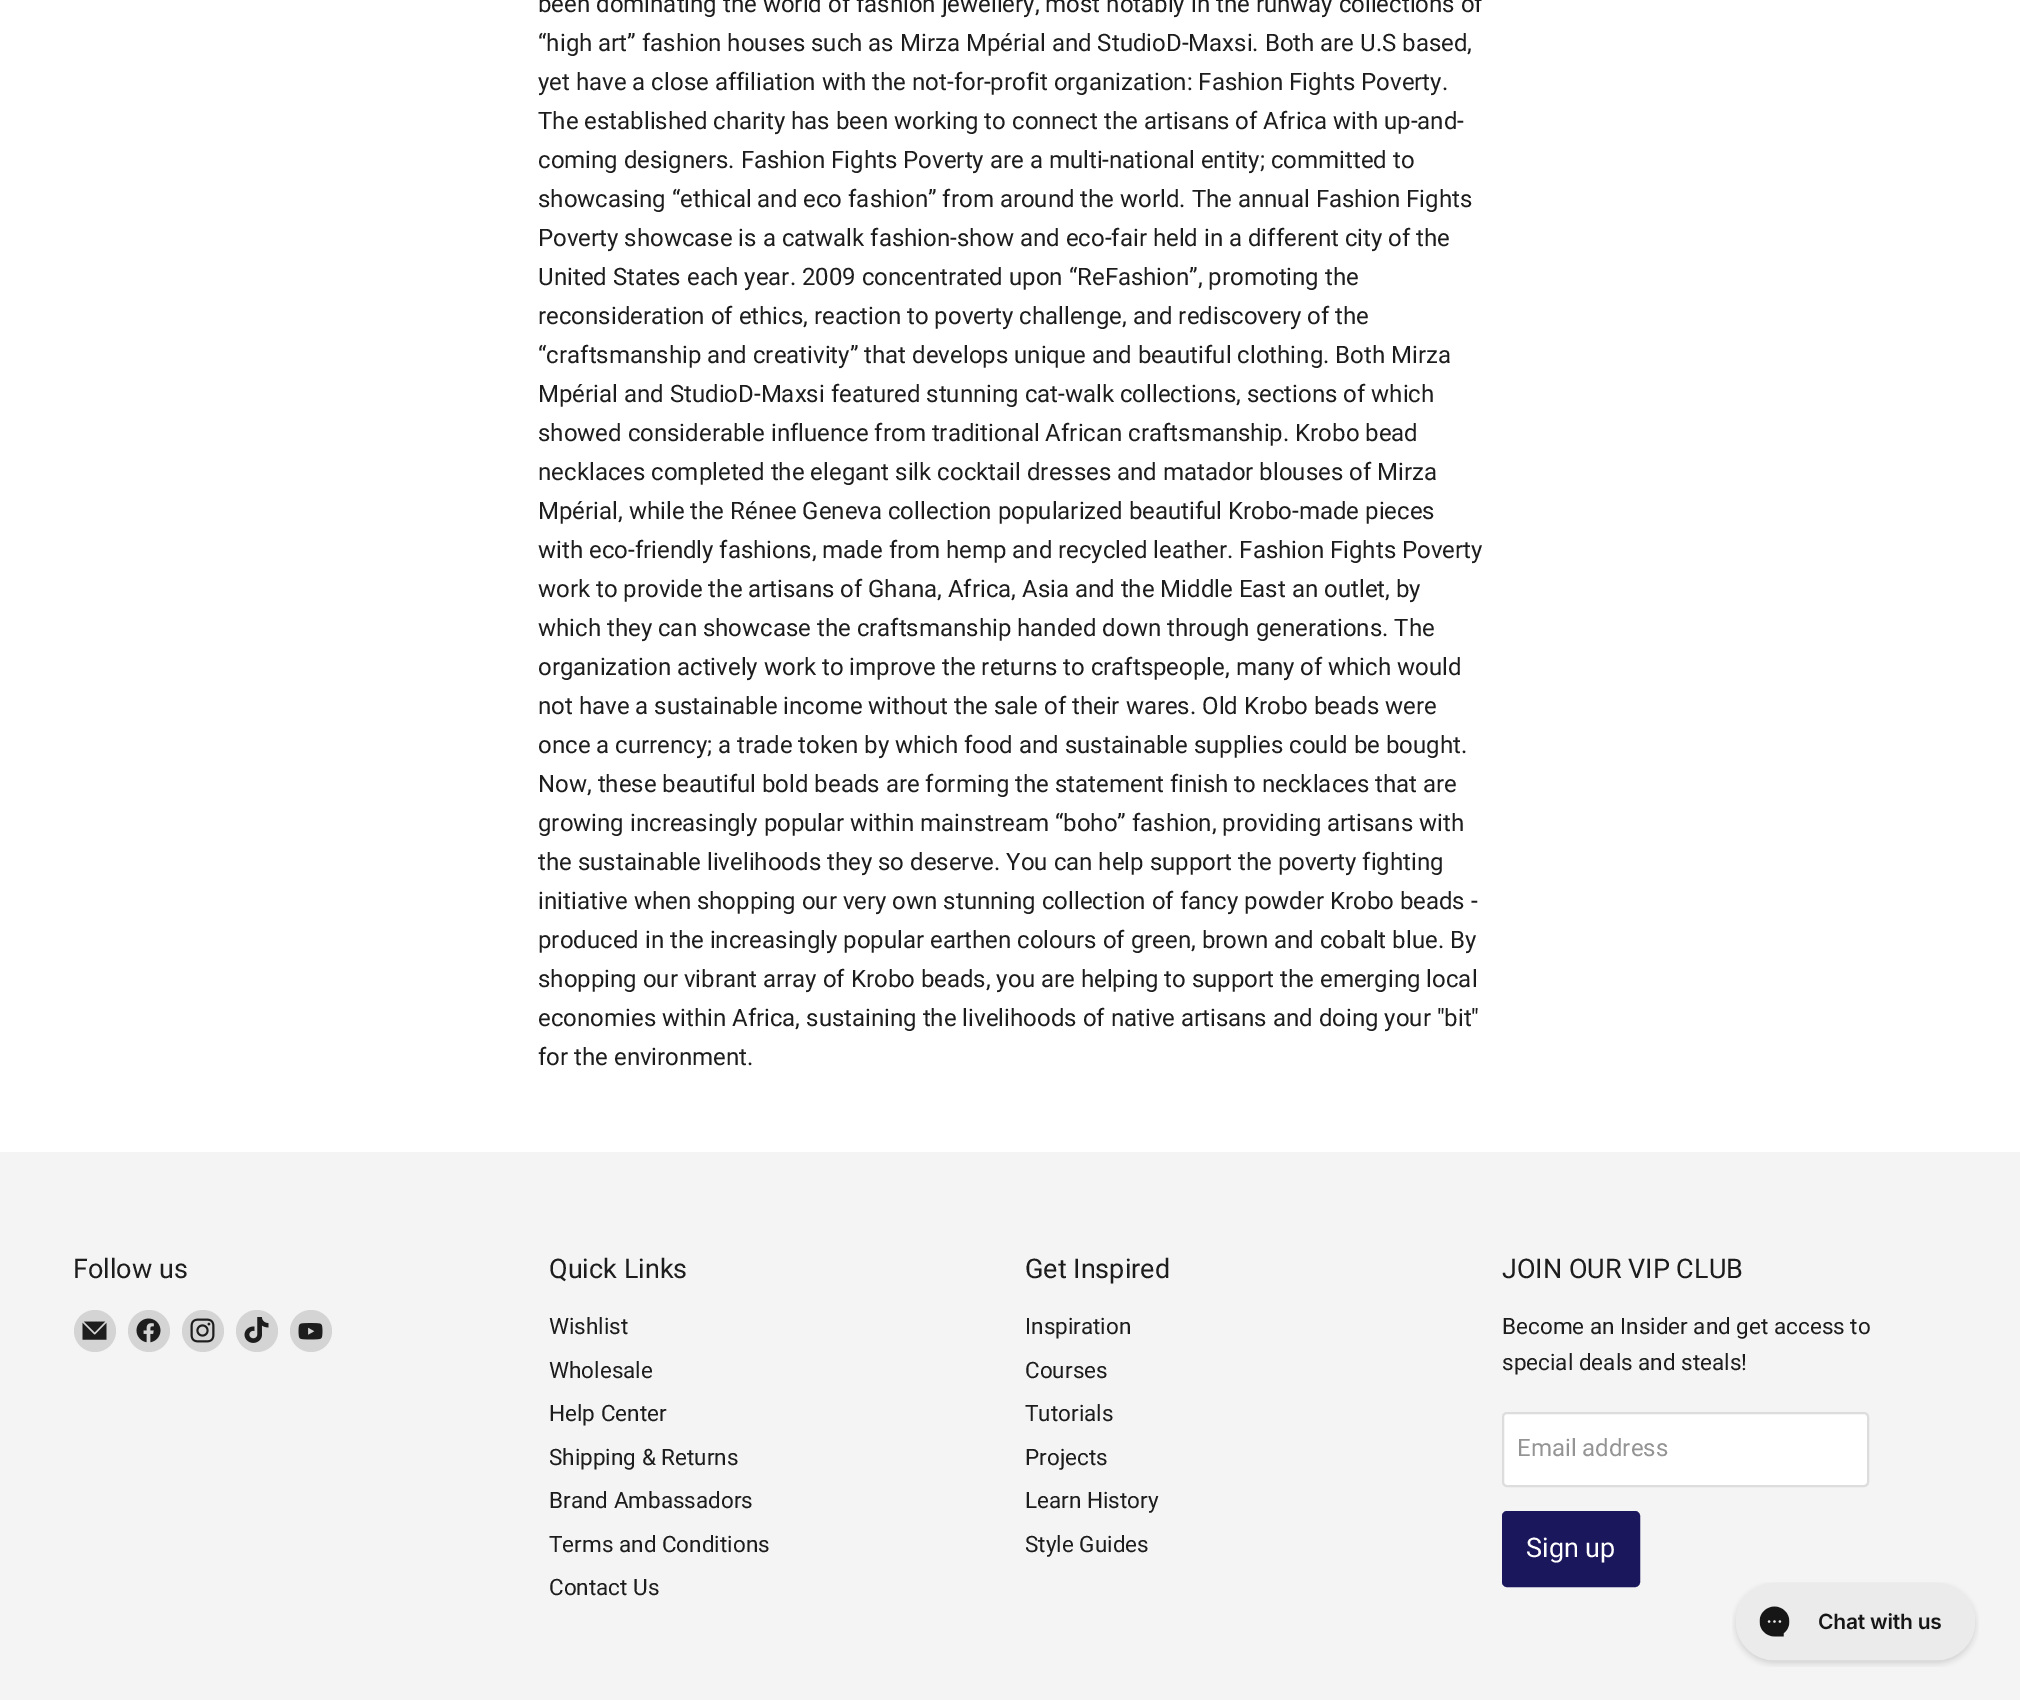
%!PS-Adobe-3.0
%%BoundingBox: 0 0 2020 1700
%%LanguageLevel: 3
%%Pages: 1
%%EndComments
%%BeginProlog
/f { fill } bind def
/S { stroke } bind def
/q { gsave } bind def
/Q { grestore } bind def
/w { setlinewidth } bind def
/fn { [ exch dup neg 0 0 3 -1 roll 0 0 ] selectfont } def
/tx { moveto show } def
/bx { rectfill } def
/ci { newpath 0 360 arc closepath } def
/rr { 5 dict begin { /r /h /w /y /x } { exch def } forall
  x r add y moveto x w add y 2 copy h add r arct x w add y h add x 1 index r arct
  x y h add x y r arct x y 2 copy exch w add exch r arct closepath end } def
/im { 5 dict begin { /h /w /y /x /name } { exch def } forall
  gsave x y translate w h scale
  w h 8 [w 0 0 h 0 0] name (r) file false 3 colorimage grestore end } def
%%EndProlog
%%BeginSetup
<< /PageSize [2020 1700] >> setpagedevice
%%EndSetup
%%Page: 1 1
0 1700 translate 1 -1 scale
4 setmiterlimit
1 setgray
0 0 2020 1700 bx
/Roboto-Regular 24 fn
0.114 setgray
(been dominating the world of fashion jewellery, most notably in the runway collections of) 538 12 tx
(“high art” fashion houses such as Mirza Mpérial and StudioD-Maxsi. Both are U.S based,) 538 51 tx
(yet have a close affiliation with the not-for-profit organization: Fashion Fights Poverty.) 538 90 tx
(The established charity has been working to connect the artisans of Africa with up-and-) 538 129 tx
(coming designers. Fashion Fights Poverty are a multi-national entity; committed to) 538 168 tx
(showcasing “ethical and eco fashion” from around the world. The annual Fashion Fights) 538 207 tx
(Poverty showcase is a catwalk fashion-show and eco-fair held in a different city of the) 538 246 tx
(United States each year. 2009 concentrated upon “ReFashion”, promoting the) 538 285 tx
(reconsideration of ethics, reaction to poverty challenge, and rediscovery of the) 538 324 tx
(“craftsmanship and creativity” that develops unique and beautiful clothing. Both Mirza) 538 363 tx
(Mpérial and StudioD-Maxsi featured stunning cat-walk collections, sections of which) 538 402 tx
(showed considerable influence from traditional African craftsmanship. Krobo bead) 538 441 tx
(necklaces completed the elegant silk cocktail dresses and matador blouses of Mirza) 538 480 tx
(Mpérial, while the Rénee Geneva collection popularized beautiful Krobo-made pieces) 538 519 tx
(with eco-friendly fashions, made from hemp and recycled leather. Fashion Fights Poverty) 538 558 tx
(work to provide the artisans of Ghana, Africa, Asia and the Middle East an outlet, by) 538 597 tx
(which they can showcase the craftsmanship handed down through generations. The) 538 636 tx
(organization actively work to improve the returns to craftspeople, many of which would) 538 675 tx
(not have a sustainable income without the sale of their wares. Old Krobo beads were) 538 714 tx
(once a currency; a trade token by which food and sustainable supplies could be bought.) 538 753 tx
(Now, these beautiful bold beads are forming the statement finish to necklaces that are) 538 792 tx
(growing increasingly popular within mainstream “boho” fashion, providing artisans with) 538 831 tx
(the sustainable livelihoods they so deserve. You can help support the poverty fighting) 538 870 tx
(initiative when shopping our very own stunning collection of fancy powder Krobo beads -) 538 909 tx
(produced in the increasingly popular earthen colours of green, brown and cobalt blue. By) 538 948 tx
(shopping our vibrant array of Krobo beads, you are helping to support the emerging local) 538 987 tx
(economies within Africa, sustaining the livelihoods of native artisans and doing your "bit") 538 1026 tx
(for the environment.) 538 1065 tx
0.957 setgray
0 1152 2020 548 bx
/Roboto-Regular 27 fn
0.114 setgray
(Follow us) 73 1278 tx
0.831 setgray
95 1331 21 ci f
(image0.raw) 82 1321 25 19 im
149 1331 21 ci f
(image1.raw) 136 1318 25 25 im
203 1331 21 ci f
(image2.raw) 190 1318 25 25 im
257 1331 21 ci f
(image3.raw) 244 1317 25 26 im
311 1331 21 ci f
(image4.raw) 298 1323 25 17 im
0.114 setgray
(Quick Links) 549 1278 tx
/Roboto-Regular 22.5 fn
(Wishlist) 549 1334 tx
(Wholesale) 549 1378 tx
(Help Center) 549 1421 tx
(Shipping & Returns) 549 1465 tx
(Brand Ambassadors) 549 1508 tx
(Terms and Conditions) 549 1552 tx
(Contact Us) 549 1595 tx
/Roboto-Regular 27 fn
(Get Inspired) 1025 1278 tx
/Roboto-Regular 22.5 fn
(Inspiration) 1025 1334 tx
(Courses) 1025 1378 tx
(Tutorials) 1025 1421 tx
(Projects) 1025 1465 tx
(Learn History) 1025 1508 tx
(Style Guides) 1025 1552 tx
/Roboto-Regular 27 fn
(JOIN OUR VIP CLUB) 1502 1278 tx
/Roboto-Regular 22.5 fn
(Become an Insider and get access to) 1502 1334 tx
(special deals and steals!) 1502 1370 tx
1 setgray
1503 1413 365 73 4 rr q f Q
0.867 setgray
2 w
S
/Roboto-Regular 24 fn
0.58 setgray
(Email address) 1517 1456 tx
0.106 0.09 0.365 setrgbcolor
1503 1512 136 74 4 rr q f Q
S
/Roboto-Regular 27 fn
1 setgray
(Sign up) 1526 1557 tx
(image5.raw) 1732 1582 247 85 im
showpage
%%EOF
